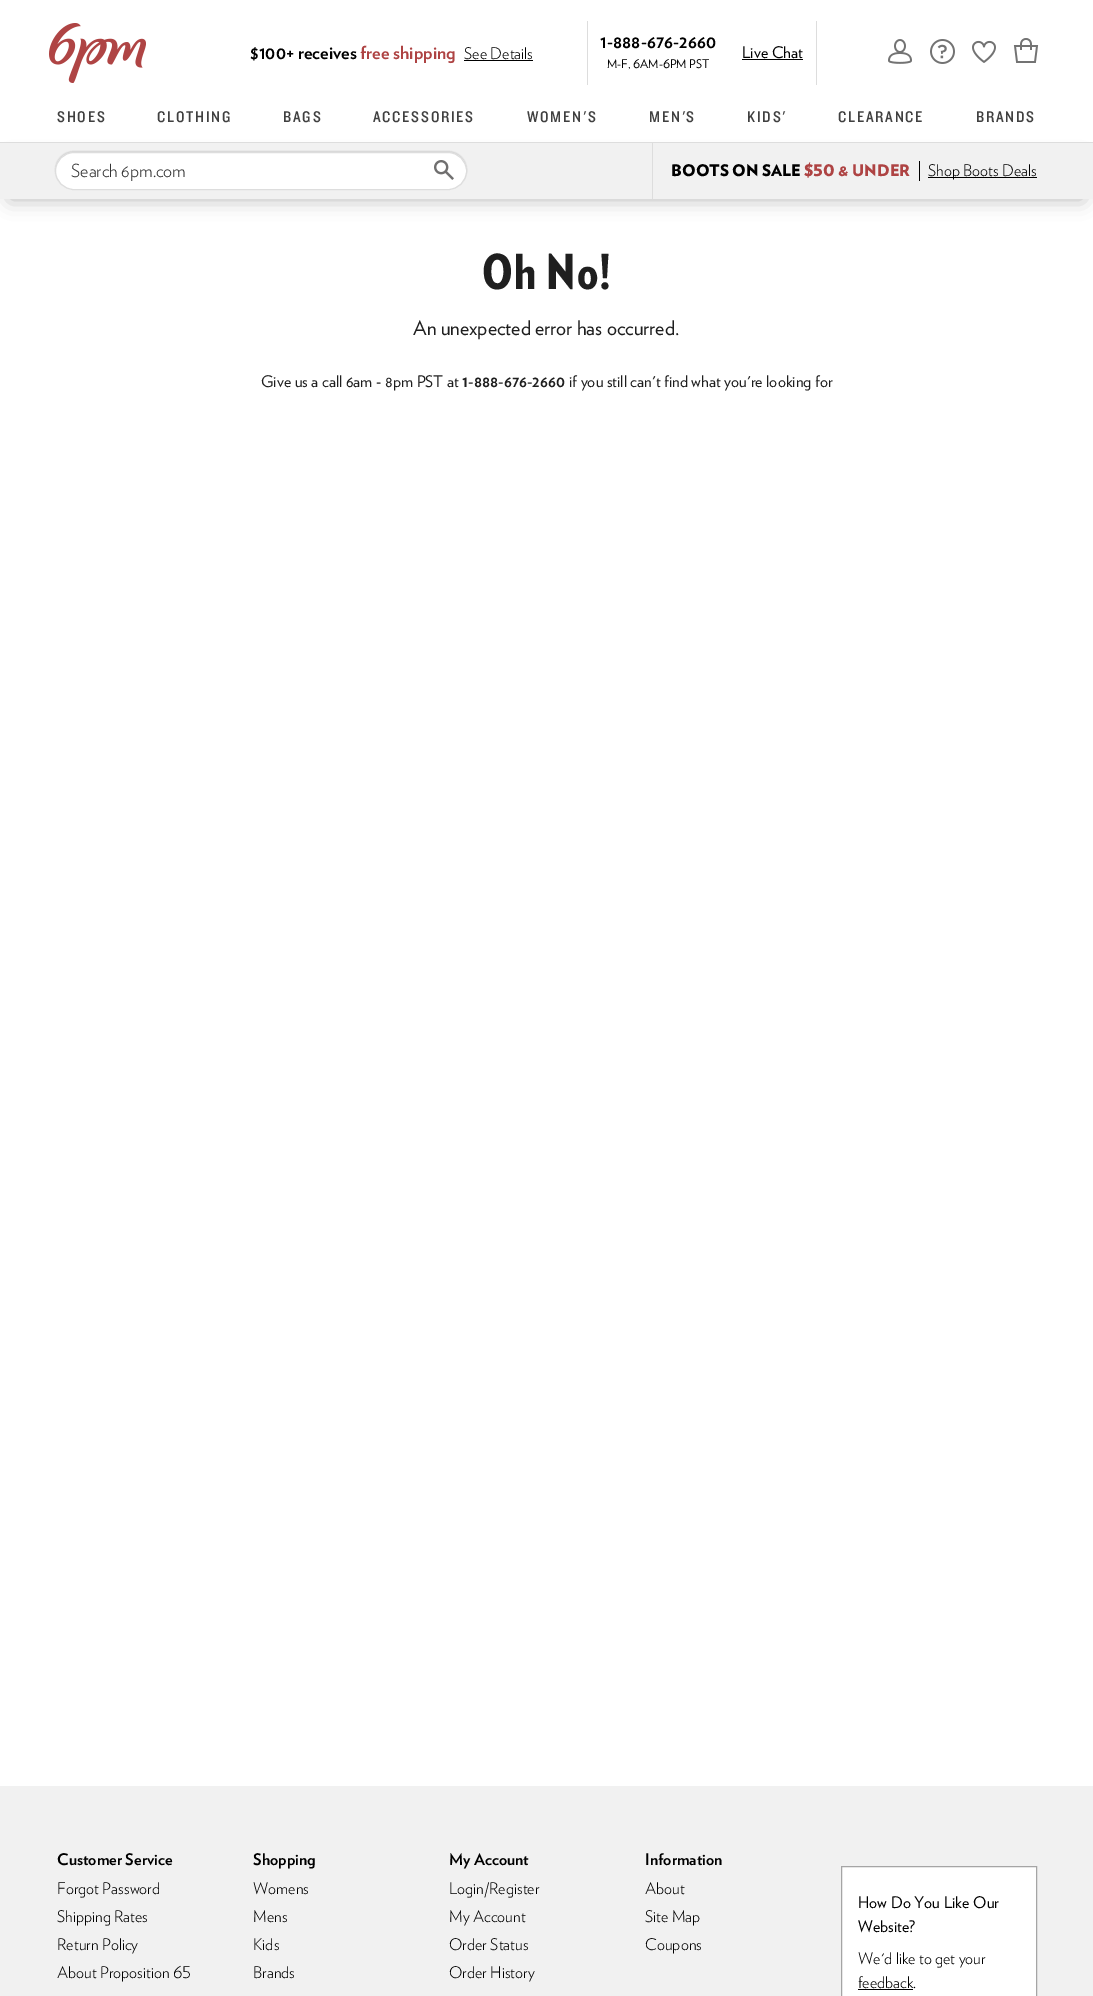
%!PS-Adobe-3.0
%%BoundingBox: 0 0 1093 1996
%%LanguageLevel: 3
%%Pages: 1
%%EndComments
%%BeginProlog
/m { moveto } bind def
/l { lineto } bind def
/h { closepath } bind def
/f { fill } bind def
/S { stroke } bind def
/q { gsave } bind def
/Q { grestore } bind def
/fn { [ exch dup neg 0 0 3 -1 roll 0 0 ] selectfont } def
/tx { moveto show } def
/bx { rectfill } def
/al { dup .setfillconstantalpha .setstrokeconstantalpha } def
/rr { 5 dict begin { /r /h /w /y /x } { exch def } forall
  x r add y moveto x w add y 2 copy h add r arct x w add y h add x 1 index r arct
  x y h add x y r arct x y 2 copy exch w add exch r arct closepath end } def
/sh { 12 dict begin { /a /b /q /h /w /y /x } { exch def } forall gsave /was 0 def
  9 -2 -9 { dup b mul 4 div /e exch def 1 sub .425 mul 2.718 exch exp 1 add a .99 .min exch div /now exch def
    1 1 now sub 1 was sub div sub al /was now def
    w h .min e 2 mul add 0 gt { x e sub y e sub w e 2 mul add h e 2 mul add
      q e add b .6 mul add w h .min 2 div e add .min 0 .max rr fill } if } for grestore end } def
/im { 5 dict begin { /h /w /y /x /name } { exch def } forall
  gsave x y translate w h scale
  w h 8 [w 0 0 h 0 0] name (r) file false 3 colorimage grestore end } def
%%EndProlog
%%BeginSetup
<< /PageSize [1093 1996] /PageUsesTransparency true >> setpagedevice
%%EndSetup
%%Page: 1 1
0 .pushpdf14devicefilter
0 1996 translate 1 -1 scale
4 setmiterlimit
1 setgray
0 0 1093 1996 bx
(image0.raw) 49 23 97 60 im
/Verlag-Bold 18 fn
0 setgray
($100+ receives) 250 59 tx
0.682 0.263 0.263 setrgbcolor
(free shipping) 360 59 tx
/Verlag-Light 16 fn
0 setgray
(See Details) 464 59 tx
464 60 69 1 bx
0.867 setgray
816 21 1 64 bx
587 21 1 64 bx
/Verlag-Bold 18 fn
0 setgray
(1-888-676-2660) 600 48 tx
/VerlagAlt-Regular 12 fn
(M-F, 6AM-6PM PST) 607 68 tx
/Verlag-Regular 16 fn
(Live Chat) 742 58 tx
742 59 61 1 bx
(image1.raw) 888 39 24 25 im
(image2.raw) 930 39 25 25 im
(image3.raw) 972 40 24 23 im
(image4.raw) 1013 38 26 25 im
/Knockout-Light 16 fn
0.251 setgray
57 122 m 1.75 0 (SHOES) ashow
157 122 m 1.75 0 (CLOTHING) ashow
283 122 m 1.75 0 (BAGS) ashow
373 122 m 1.75 0 (ACCESSORIES) ashow
527 122 m 1.75 0 (WOMEN'S) ashow
649 122 m 1.75 0 (MEN'S) ashow
747 122 m 1.75 0 (KIDS') ashow
838 122 m 1.75 0 (CLEARANCE) ashow
976 122 m 1.75 0 (BRANDS) ashow
0.702 setgray
10 162 1073 37 0 10 1 sh
0.945 setgray
0 143 1093 56 bx
0.867 setgray
0 142 1093 1 bx
0.78 setgray
55 151 412 38 19 0.5 0.68 sh
1 setgray
55.5 152.5 411 37 18.5 rr q f Q
0.867 setgray
S
/Verlag-Light 18 fn
0.2 setgray
(Search 6pm.com) 71 177 tx
(image5.raw) 434 160 20 20 im
0.867 setgray
652 143 1 56 bx
/Verlag-Black 16 fn
0 setgray
(BOOTS ON SALE) 671 176 tx
/VerlagAlt-Black 16 fn
0.682 0.263 0.263 setrgbcolor
($50 & UNDER) 804 176 tx
0 setgray
919 161 1 20 bx
928 177 109 1 bx
/Verlag-Light 16 fn
(Shop Boots Deals) 928 176 tx
/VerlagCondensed-Black 48 fn
0.122 setgray
482 289 m 1 0 (Oh No!) ashow
/Verlag-Regular 20 fn
(An unexpected error has occurred.) 413 335 tx
/Verlag-Regular 16 fn
(Give us a call 6am - 8pm PST at) 261 387 tx
/Verlag-Bold 16 fn
(1-888-676-2660) 462 387 tx
/Verlag-Regular 16 fn
(if you still can't find what you're looking for) 569 387 tx
0.945 setgray
0 1786 1093 210 bx
/Verlag-Bold 16 fn
0 setgray
(Customer Service) 57 1865 tx
/Verlag-Light 16 fn
(Forgot Password) 57 1894 tx
(Shipping Rates) 57 1922 tx
(Return Policy) 57 1950 tx
/VerlagAlt-Light 16 fn
(About Proposition 65) 57 1978 tx
/Verlag-Bold 16 fn
(Shopping) 253 1865 tx
/Verlag-Light 16 fn
(Womens) 253 1894 tx
(Mens) 253 1922 tx
(Kids) 253 1950 tx
(Brands) 253 1978 tx
/Verlag-Bold 16 fn
(My Account) 449 1865 tx
/Verlag-Light 16 fn
(Login/Register) 449 1894 tx
(My Account) 449 1922 tx
(Order Status) 449 1950 tx
(Order History) 449 1978 tx
/Verlag-Bold 16 fn
(Information) 645 1865 tx
/Verlag-Light 16 fn
(About) 645 1894 tx
(Site Map) 645 1922 tx
(Coupons) 645 1950 tx
1 setgray
841.5 1866.5 m 1036.5 1866.5 l 1036.5 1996.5 l 841.5 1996.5 l h q f Q
0.647 setgray
S
/Verlag-Regular 16 fn
0 setgray
(How Do You Like Our) 858 1908 tx
(Website?) 858 1932 tx
/Verlag-Light 16 fn
(We'd like to get your) 858 1964 tx
(feedback.) 858 1988 tx
858 1989 55 1 bx
.poppdf14devicefilter showpage
%%EOF
